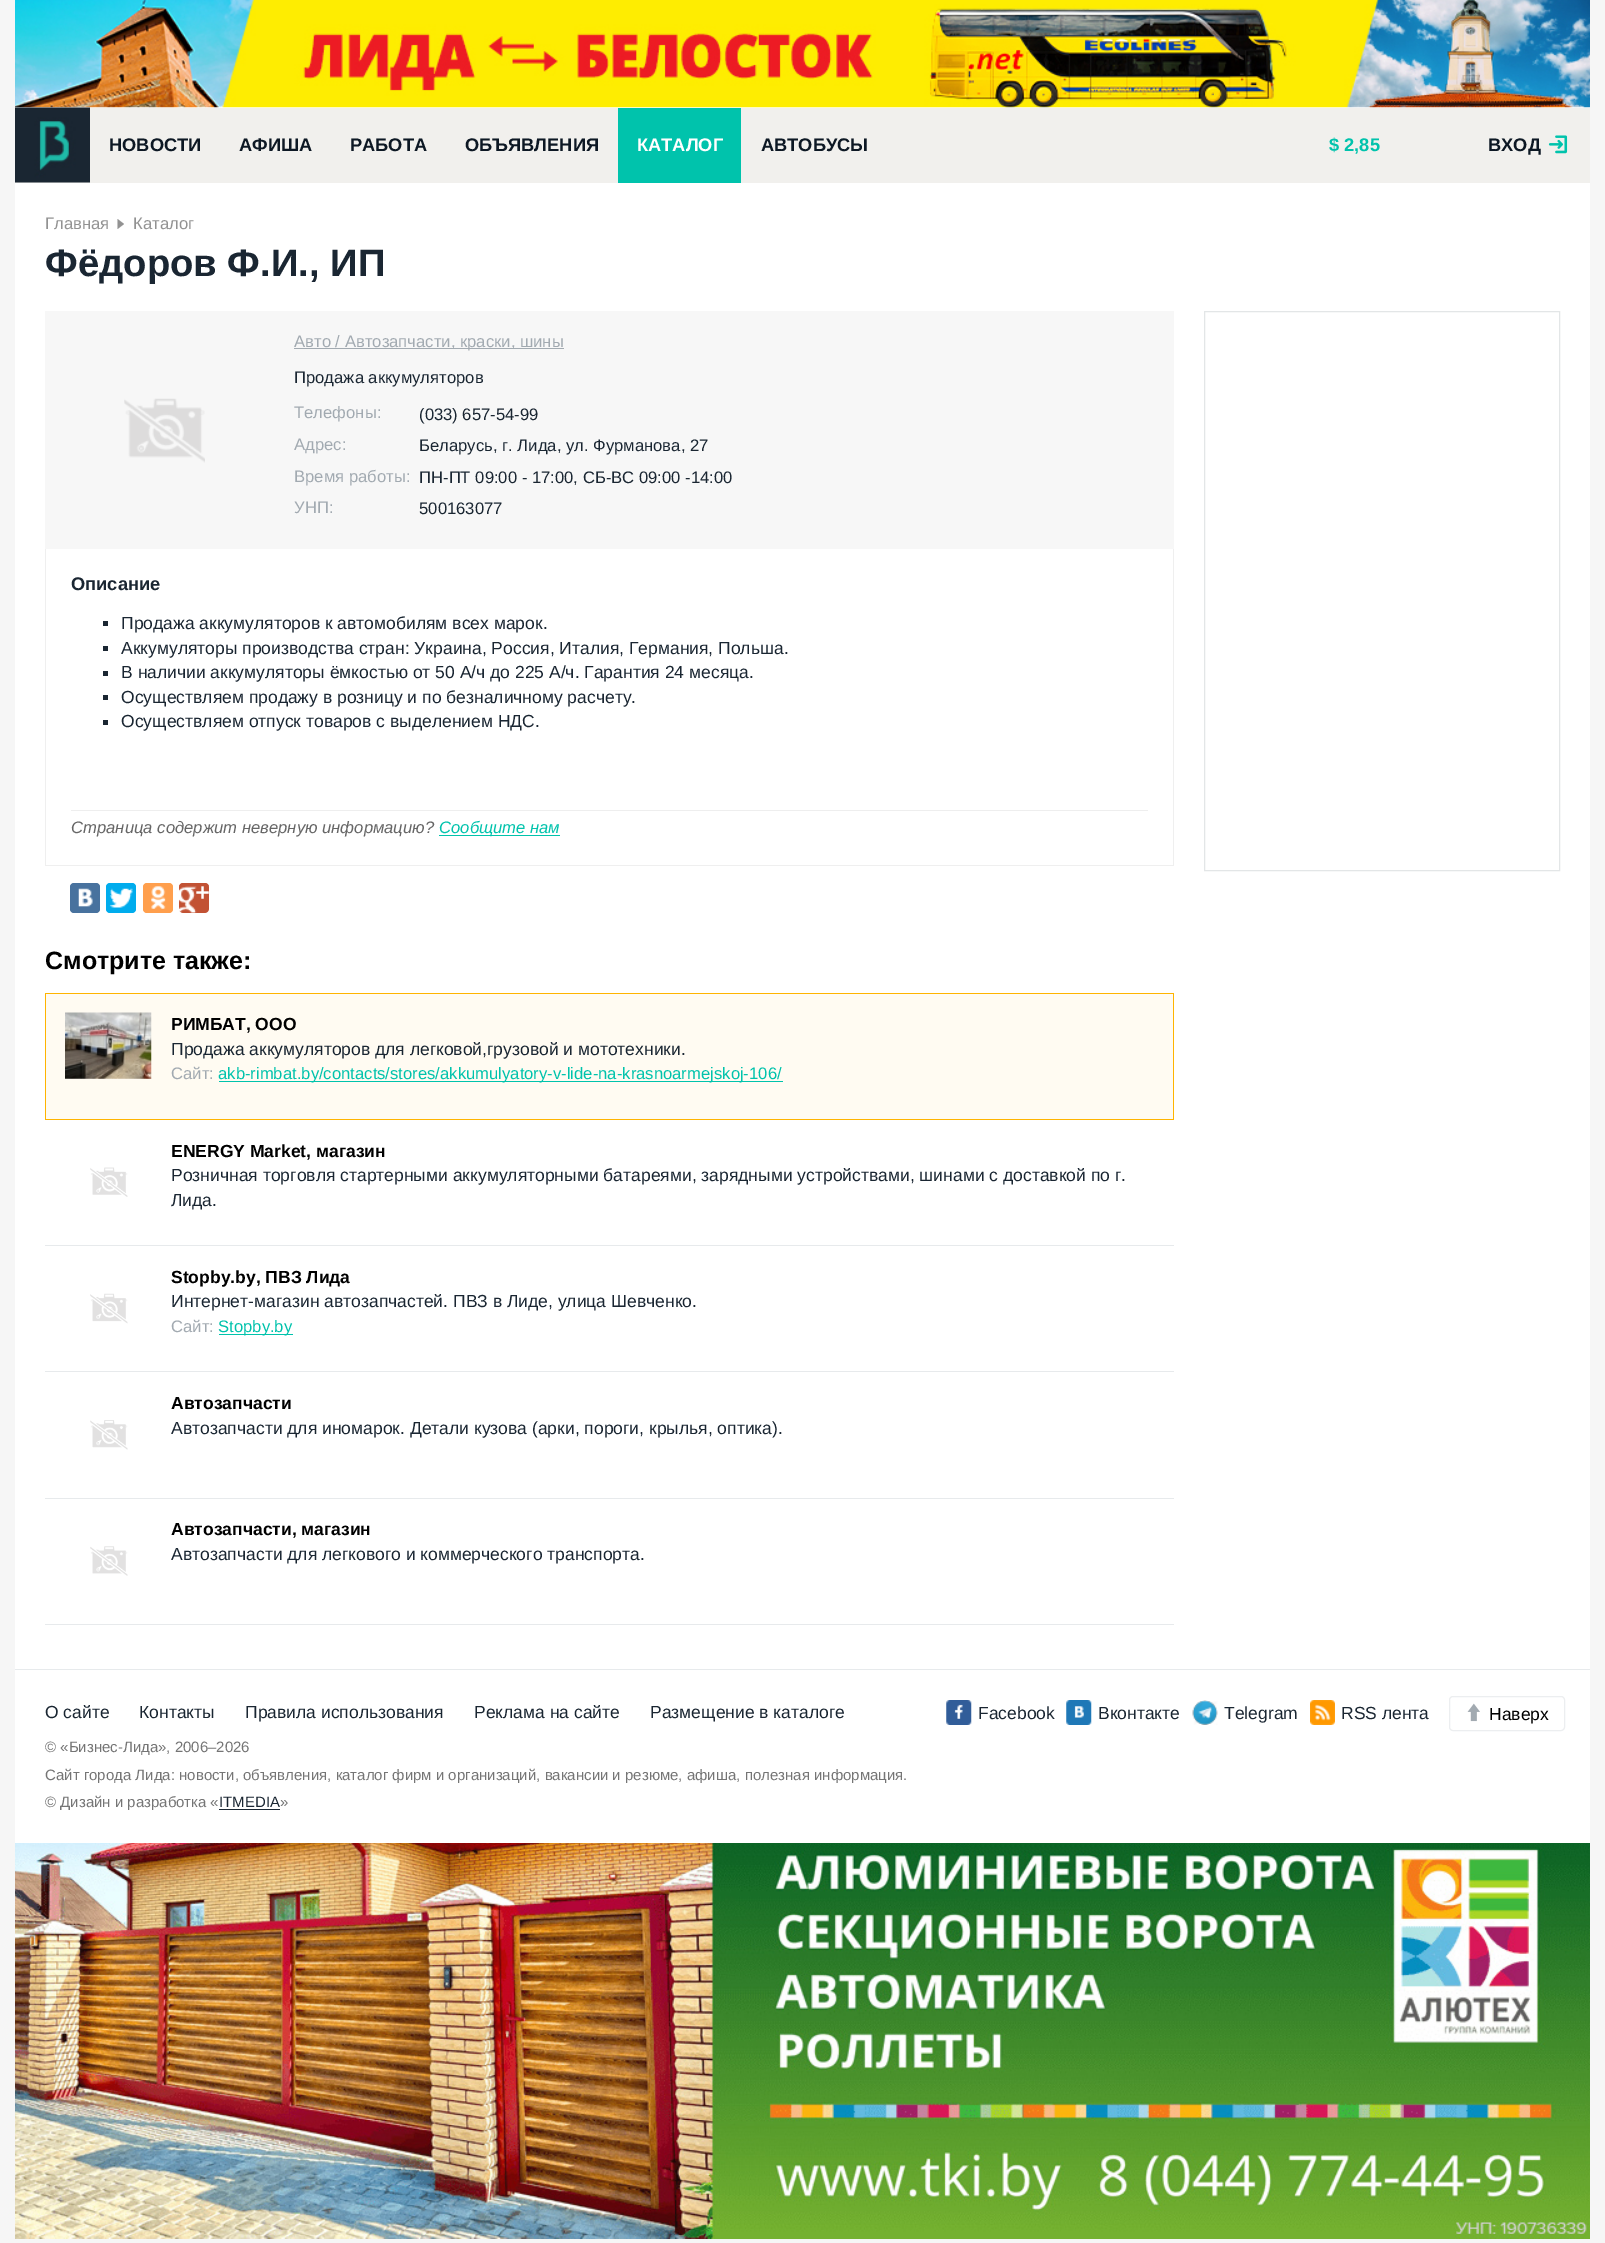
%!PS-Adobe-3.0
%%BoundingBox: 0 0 1605 2243
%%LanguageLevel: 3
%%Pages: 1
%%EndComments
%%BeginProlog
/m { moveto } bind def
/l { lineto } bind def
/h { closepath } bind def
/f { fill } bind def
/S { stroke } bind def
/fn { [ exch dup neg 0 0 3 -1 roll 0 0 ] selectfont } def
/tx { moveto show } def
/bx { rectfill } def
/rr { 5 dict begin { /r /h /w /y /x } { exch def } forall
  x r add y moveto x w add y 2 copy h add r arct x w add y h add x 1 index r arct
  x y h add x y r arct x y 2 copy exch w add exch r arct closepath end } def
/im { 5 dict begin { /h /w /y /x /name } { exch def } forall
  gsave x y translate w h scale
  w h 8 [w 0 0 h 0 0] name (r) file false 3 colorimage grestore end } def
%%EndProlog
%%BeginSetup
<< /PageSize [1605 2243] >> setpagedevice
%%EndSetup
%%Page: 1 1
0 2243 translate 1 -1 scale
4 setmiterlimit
0.965 setgray
0 0 1605 2243 bx
1 setgray
15 107 1575 1736 bx
(image0.raw) 15 0 1575 108 im
0.945 0.941 0.929 setrgbcolor
15 108 1575 75 bx
(image1.raw) 15 107 75 76 im
/Arimo-Bold 18.25 fn
0.051 0.094 0.141 setrgbcolor
(НОВОСТИ) 109 151 tx
(АФИША) 239 151 tx
(РАБОТА) 350 151 tx
(ОБЪЯВЛЕНИЯ) 465 151 tx
0 0.765 0.675 setrgbcolor
618 108 123 75 bx
1 setgray
(КАТАЛОГ) 637 151 tx
0.051 0.094 0.141 setrgbcolor
(АВТОБУСЫ) 761 151 tx
0 0.765 0.675 setrgbcolor
($ 2,85) 1329 151 tx
0.051 0.094 0.141 setrgbcolor
(ВХОД) 1488 151 tx
(image2.raw) 1548 135 20 19 im
/LiberationSans-Regular 16.65 fn
0.573 setgray
(Главная) 45 229 tx
117.5 229 m 117.5 219 l 124 224 l h f
(Каталог) 133 229 tx
/Arimo-Bold 38.25 fn
0.102 0.149 0.196 setrgbcolor
(Фёдоров Ф.И., ИП) 45 276 tx
0.969 setgray
45 311 1129 238 bx
(image3.raw) 124 398 81 65 im
0.635 0.667 0.694 setrgbcolor
294 348 270 1 bx
/LiberationSans-Regular 16.65 fn
(Авто / Автозапчасти, краски, шины) 294 347 tx
0.102 0.149 0.196 setrgbcolor
(Продажа аккумуляторов) 294 383 tx
/Arimo-Regular 16.65 fn
0.635 0.667 0.694 setrgbcolor
(Телефоны:) 294 418 tx
/LiberationSans-Regular 16.65 fn
0.102 0.149 0.196 setrgbcolor
(\(033\) 657-54-99) 419 420 tx
/Arimo-Regular 16.65 fn
0.635 0.667 0.694 setrgbcolor
(Адрес:) 294 450 tx
/LiberationSans-Regular 16.65 fn
0.102 0.149 0.196 setrgbcolor
(Беларусь, г. Лида, ул. Фурманова, 27) 419 451 tx
/Arimo-Regular 16.65 fn
0.635 0.667 0.694 setrgbcolor
(Время работы:) 294 482 tx
/LiberationSans-Regular 16.65 fn
0.102 0.149 0.196 setrgbcolor
(ПН-ПТ 09:00 - 17:00, СБ-ВС 09:00 -14:00) 419 483 tx
/Arimo-Regular 16.65 fn
0.635 0.667 0.694 setrgbcolor
(УНП:) 294 513 tx
/LiberationSans-Regular 16.65 fn
0.102 0.149 0.196 setrgbcolor
(500163077) 419 514 tx
0.937 setgray
1173 549 1 317 bx
45 865 1129 1 bx
45 549 1 317 bx
/LiberationSans-Bold 18.25 fn
0.102 0.149 0.196 setrgbcolor
(Описание) 71 590 tx
103 621 5 5 bx
/LiberationSans-Regular 17.5 fn
(Продажа аккумуляторов к автомобилям всех марок.) 121 629 tx
103 646 5 5 bx
(Аккумуляторы производства стран: Украина, Россия, Италия, Германия, Польша.) 121 654 tx
103 671 5 5 bx
(В наличии аккумуляторы ёмкостью от 50 А/ч до 225 А/ч. Гарантия 24 месяца.) 121 678 tx
103 695 5 5 bx
(Осуществляем продажу в розницу и по безналичному расчету.) 121 703 tx
103 720 5 5 bx
(Осуществляем отпуск товаров с выделением НДС.) 121 727 tx
0.933 setgray
71 810 1077 1 bx
/LiberationSans-Italic 16.65 fn
0.4 setgray
(Страница содержит неверную информацию?) 71 833 tx
0 0.765 0.675 setrgbcolor
439 835 121 1 bx
(Сообщите нам) 439 833 tx
0.282 0.447 0.62 setrgbcolor
70 883 30 30 4 rr f
(image4.raw) 78 888 15 19 im
0 0.675 0.929 setrgbcolor
106 883 30 30 4 rr f
(image5.raw) 109 888 24 20 im
1 0.624 0.302 setrgbcolor
143 883 30 30 4 rr f
(image6.raw) 151 886 15 23 im
0.761 0.322 0.204 setrgbcolor
179 883 30 30 4 rr f
(image7.raw) 179 886 30 27 im
/Arimo-Bold 25 fn
0 setgray
(Смотрите также:) 45 969 tx
1 0.984 0.949 setrgbcolor
46 994 1127 125 bx
1 0.706 0 setrgbcolor
45 993 1129 1 bx
1173 993 1 127 bx
45 1119 1129 1 bx
45 993 1 127 bx
(image8.raw) 65 1012 87 67 im
/Arimo-Bold 17.5 fn
0 setgray
(РИМБАТ, ООО) 171 1030 tx
/LiberationSans-Regular 17.5 fn
0.102 0.149 0.196 setrgbcolor
(Продажа аккумуляторов для легковой,грузовой и мототехники.) 171 1055 tx
/LiberationSans-Regular 16.65 fn
0.635 0.667 0.694 setrgbcolor
(Сайт:) 171 1079 tx
0 0.765 0.675 setrgbcolor
219 1081 564 1 bx
(akb-rimbat.by/contacts/stores/akkumulyatory-v-lide-na-krasnoarmejskoj-106/) 218 1079 tx
0.906 0.918 0.925 setrgbcolor
45 1245 1129 1 bx
(image9.raw) 90 1167 38 30 im
/Arimo-Bold 17.5 fn
0 setgray
(ENERGY Market, магазин) 171 1157 tx
/LiberationSans-Regular 17.5 fn
0.102 0.149 0.196 setrgbcolor
(Розничная торговля стартерными аккумуляторными батареями, зарядными устройствами, шинами с доставкой по г.) 171 1181 tx
(Лида.) 171 1206 tx
0.906 0.918 0.925 setrgbcolor
45 1371 1129 1 bx
(image10.raw) 90 1293 38 31 im
/Arimo-Bold 17.5 fn
0 setgray
(Stopby.by, ПВЗ Лида) 171 1283 tx
/LiberationSans-Regular 17.5 fn
0.102 0.149 0.196 setrgbcolor
(Интернет-магазин автозапчастей. ПВЗ в Лиде, улица Шевченко.) 171 1307 tx
/LiberationSans-Regular 16.65 fn
0.635 0.667 0.694 setrgbcolor
(Сайт:) 171 1332 tx
0 0.765 0.675 setrgbcolor
219 1334 74 1 bx
(Stopby.by) 218 1332 tx
0.906 0.918 0.925 setrgbcolor
45 1498 1129 1 bx
(image11.raw) 90 1420 38 30 im
/Arimo-Bold 17.5 fn
0 setgray
(Автозапчасти) 171 1409 tx
/LiberationSans-Regular 17.5 fn
0.102 0.149 0.196 setrgbcolor
(Автозапчасти для иномарок. Детали кузова \(арки, пороги, крылья, оптика\).) 171 1434 tx
0.906 0.918 0.925 setrgbcolor
45 1624 1129 1 bx
(image12.raw) 90 1546 38 30 im
/Arimo-Bold 17.5 fn
0 setgray
(Автозапчасти, магазин) 171 1535 tx
/LiberationSans-Regular 17.5 fn
0.102 0.149 0.196 setrgbcolor
(Автозапчасти для легкового и коммерческого транспорта.) 171 1560 tx
0.89 0.902 0.906 setrgbcolor
1204.5 311.5 355 559 rectstroke
0.906 0.918 0.925 setrgbcolor
15 1669 1575 1 bx
/Arimo-Regular 17.5 fn
0.102 0.149 0.196 setrgbcolor
(О сайте) 45 1718 tx
(Контакты) 139 1718 tx
(Правила использования) 245 1718 tx
(Реклама на сайте) 474 1718 tx
(Размещение в каталоге) 650 1718 tx
/LiberationSans-Regular 15 fn
0.459 setgray
(© «Бизнес-Лида», 2006–2026) 45 1752 tx
(Сайт города Лида: новости, объявления, каталог фирм и организаций, вакансии и резюме, афиша, полезная информация.) 45 1780 tx
(© Дизайн и разработка «) 45 1807 tx
0.102 0.149 0.196 setrgbcolor
219 1809 61 1 bx
(ITMEDIA) 219 1807 tx
0.459 setgray
(») 280 1807 tx
(image13.raw) 946 1700 26 25 im
/Arimo-Regular 17.5 fn
0.102 0.149 0.196 setrgbcolor
(Facebook) 978 1719 tx
(image14.raw) 1066 1700 26 25 im
(Вконтакте) 1098 1719 tx
(image15.raw) 1192 1700 26 25 im
(Telegram) 1224 1719 tx
(image16.raw) 1310 1700 25 25 im
(RSS лента) 1341 1719 tx
0.925 0.933 0.941 setrgbcolor
1449.5 1696.5 115 34 3.5 rr S
(image17.raw) 1467 1703 13 19 im
0 setgray
(Наверх) 1489 1720 tx
(image18.raw) 15 1843 1575 396 im
showpage
%%EOF
